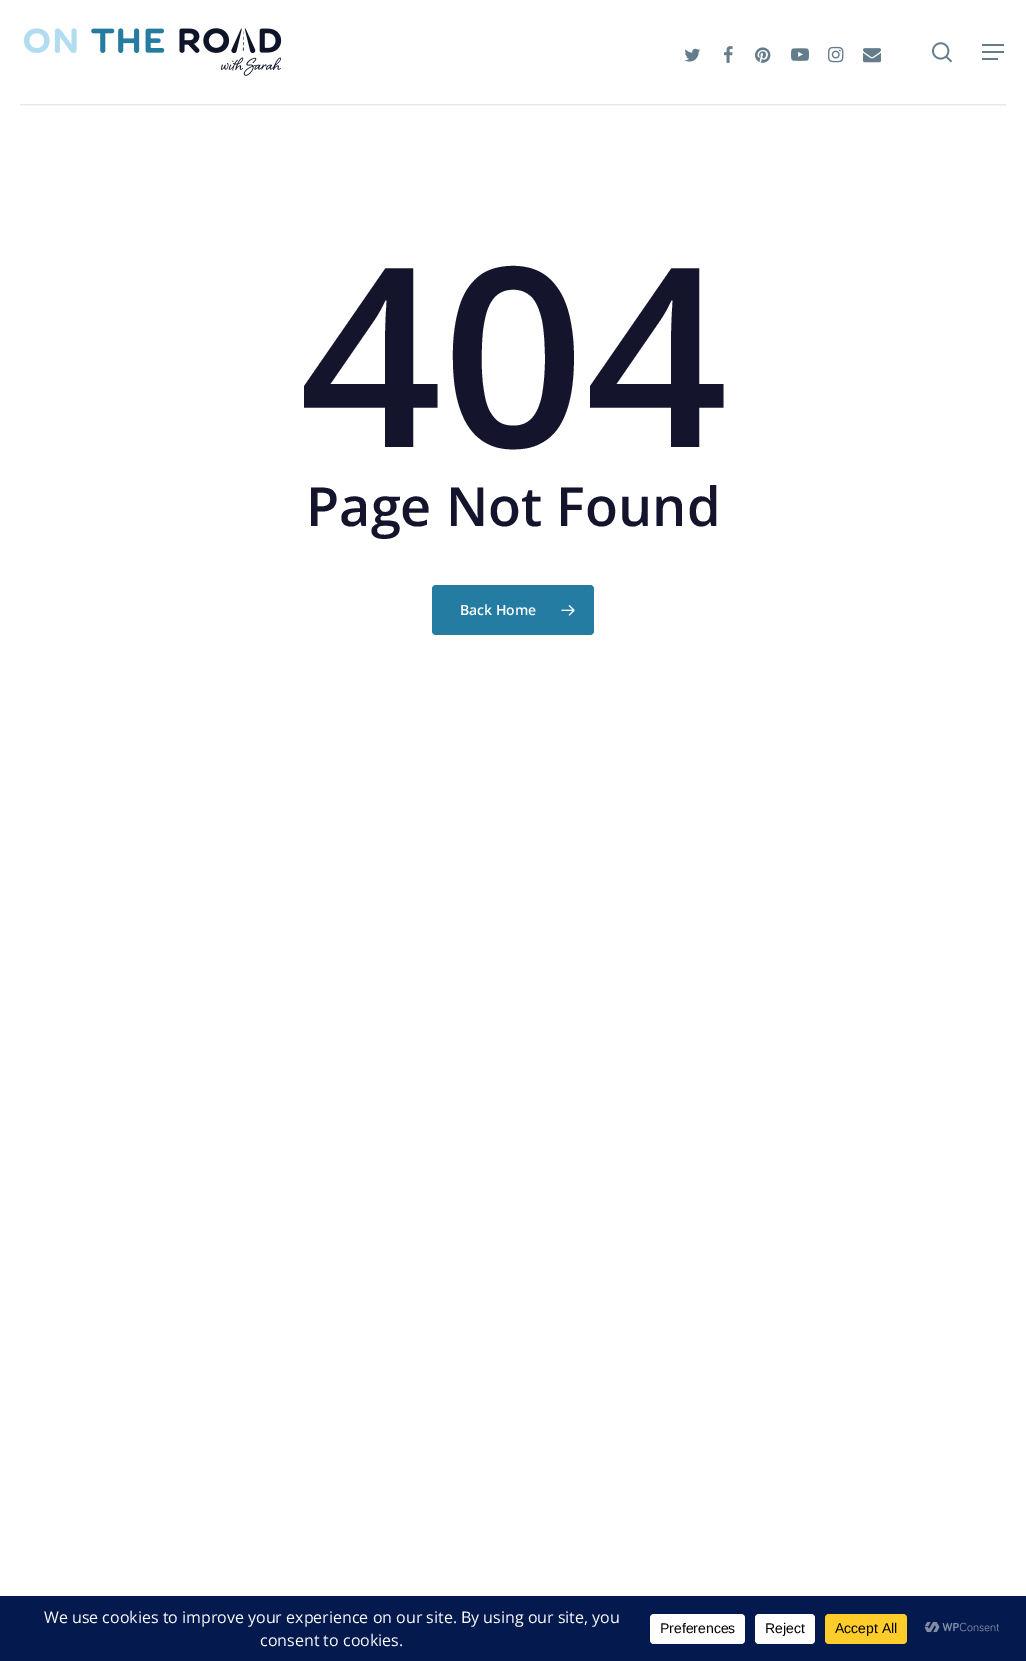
%!PS-Adobe-3.0
%%BoundingBox: 0 0 1026 1661
%%LanguageLevel: 3
%%Pages: 1
%%EndComments
%%BeginProlog
/f { fill } bind def
/q { gsave } bind def
/Q { grestore } bind def
/fn { [ exch dup neg 0 0 3 -1 roll 0 0 ] selectfont } def
/tx { moveto show } def
/bx { rectfill } def
/al { dup .setfillconstantalpha .setstrokeconstantalpha } def
/rr { 5 dict begin { /r /h /w /y /x } { exch def } forall
  x r add y moveto x w add y 2 copy h add r arct x w add y h add x 1 index r arct
  x y h add x y r arct x y 2 copy exch w add exch r arct closepath end } def
/sh { 12 dict begin { /a /b /q /h /w /y /x } { exch def } forall gsave /was 0 def
  9 -2 -9 { dup b mul 4 div /e exch def 1 sub .425 mul 2.718 exch exp 1 add a .99 .min exch div /now exch def
    1 1 now sub 1 was sub div sub al /was now def
    w h .min e 2 mul add 0 gt { x e sub y e sub w e 2 mul add h e 2 mul add
      q e add b .6 mul add w h .min 2 div e add .min 0 .max rr fill } if } for grestore end } def
/im { 5 dict begin { /h /w /y /x /name } { exch def } forall
  gsave x y translate w h scale
  w h 8 [w 0 0 h 0 0] name (r) file false 3 colorimage grestore end } def
%%EndProlog
%%BeginSetup
<< /PageSize [1026 1661] /PageUsesTransparency true >> setpagedevice
%%EndSetup
%%Page: 1 1
0 .pushpdf14devicefilter
0 1661 translate 1 -1 scale
4 setmiterlimit
1 setgray
0 0 1026 1661 bx
q
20 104 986 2 rectclip
0 setgray
0 0 1026 104 0 1.5 0.22 sh
Q
(image0.raw) 23 28 259 48 im
(image1.raw) 684 48 17 14 im
(image2.raw) 723 46 10 17 im
(image3.raw) 755 47 16 16 im
(image4.raw) 791 48 18 13 im
(image5.raw) 828 46 16 17 im
(image6.raw) 863 48 18 15 im
(image7.raw) 932 42 20 21 im
0.392 0.486 0.549 setrgbcolor
982 44 22 2 bx
982 58 16 2 bx
982 51 22 2 bx
1 setgray
0 104 20 2 bx
1006 104 20 2 bx
/OpenSans-SemiBold 250 fn
0.078 0.078 0.173 setrgbcolor
(404) 299 447 tx
/OpenSans-SemiBold 54 fn
(Page Not Found) 306 526 tx
0.141 0.486 0.639 setrgbcolor
432 585 162 50 4 rr f
/OpenSans-SemiBold 14 fn
1 setgray
(Back Home) 460 615 tx
(image8.raw) 561 605 14 11 im
0.016 0.098 0.306 setrgbcolor
0 1596 1026 65 bx
/OpenSans-Regular 16 fn
1 setgray
(We use cookies to improve your experience on our site. By using our site, you) 44 1623 tx
(consent to cookies.) 260 1646 tx
650 1614 95 30 4 rr f
/LiberationSans-Regular 14 fn
0 setgray
(Preferences) 660 1633 tx
1 setgray
755 1614 60 30 4 rr f
0 setgray
(Reject) 765 1633 tx
1 0.804 0.165 setrgbcolor
825 1614 82 30 4 rr f
0 setgray
(Accept All) 835 1633 tx
(image9.raw) 924 1622 75 11 im
.poppdf14devicefilter showpage
%%EOF
